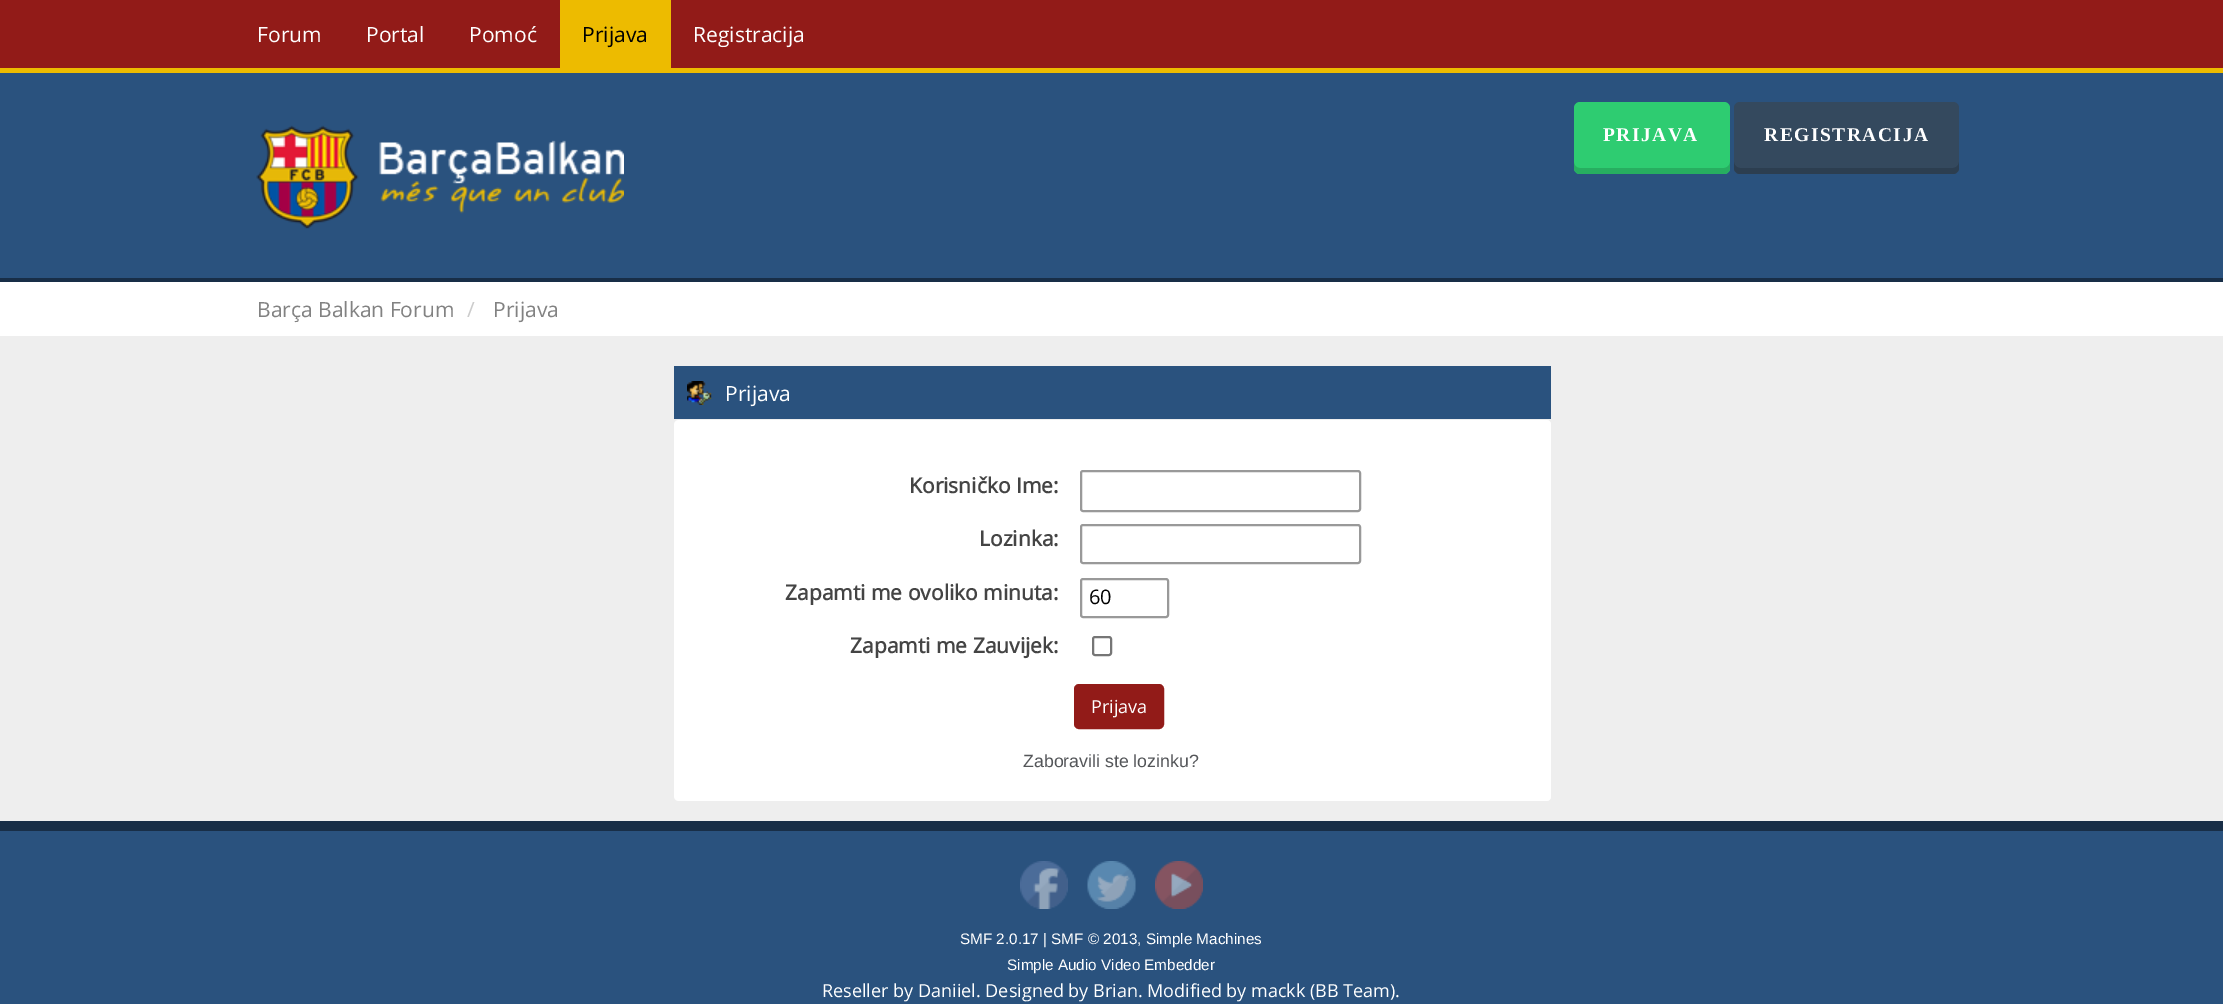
%!PS-Adobe-3.0
%%BoundingBox: 0 0 2223 1004
%%LanguageLevel: 3
%%Pages: 1
%%EndComments
%%BeginProlog
/m { moveto } bind def
/l { lineto } bind def
/c { curveto } bind def
/h { closepath } bind def
/f { fill } bind def
/S { stroke } bind def
/q { gsave } bind def
/Q { grestore } bind def
/w { setlinewidth } bind def
/fn { [ exch dup neg 0 0 3 -1 roll 0 0 ] selectfont } def
/tx { moveto show } def
/bx { rectfill } def
/rr { 5 dict begin { /r /h /w /y /x } { exch def } forall
  x r add y moveto x w add y 2 copy h add r arct x w add y h add x 1 index r arct
  x y h add x y r arct x y 2 copy exch w add exch r arct closepath end } def
/im { 5 dict begin { /h /w /y /x /name } { exch def } forall
  gsave x y translate w h scale
  w h 8 [w 0 0 h 0 0] name (r) file false 3 colorimage grestore end } def
%%EndProlog
%%BeginSetup
<< /PageSize [2223 1004] >> setpagedevice
%%EndSetup
%%Page: 1 1
0 1004 translate 1 -1 scale
4 setmiterlimit
0.933 setgray
0 0 2223 1004 bx
0.573 0.106 0.094 setrgbcolor
0 0 2223 68 bx
0.929 0.733 0 setrgbcolor
0 68 2223 5 bx
/OpenSans-Regular 21 fn
1 setgray
(Forum) 257 42 tx
(Portal) 366 42 tx
(Pomoć) 469 42 tx
0.929 0.733 0 setrgbcolor
560 0 111 68 bx
0 setgray
(Prijava) 582 42 tx
1 setgray
(Registracija) 693 42 tx
0.165 0.322 0.494 setrgbcolor
0 73 2223 205 bx
0.094 0.18 0.278 setrgbcolor
0 278 2223 4 bx
(image0.raw) 256 125 368 104 im
0.18 0.8 0.443 setrgbcolor
1574 102 156 72 6 rr f
0.153 0.682 0.376 setrgbcolor
1574 162 m 1574 168 l 1574 171 1577 174 1580 174 c 1724 174 l 1727 174 1730 171 1730 168 c 1730 162 l 1730 165 1727 168 1724 168 c 1580 168 l 1576 168 1574 165 1574 162 c h f
/LiberationSerif-Bold 19.5 fn
1 setgray
1603 141 m 1.5 0 (PRIJAVA) ashow
0.204 0.286 0.369 setrgbcolor
1734 102 225 72 6 rr f
0.173 0.243 0.314 setrgbcolor
1734 162 m 1734 168 l 1734 171 1737 174 1740 174 c 1953 174 l 1956 174 1959 171 1959 168 c 1959 162 l 1959 165 1956 168 1953 168 c 1740 168 l 1737 168 1734 165 1734 162 c h f
1 setgray
1764 141 m 1.5 0 (REGISTRACIJA) ashow
0 282 2223 54 bx
/OpenSans-Regular 21 fn
0.51 setgray
(Barça Balkan Forum) 257 317 tx
0.8 setgray
(/) 467 317 tx
0.51 setgray
(Prijava) 493 317 tx
0.165 0.322 0.494 setrgbcolor
674 366 877 53 bx
(image1.raw) 687 381 25 24 im
1 setgray
(Prijava) 725 401 tx
679 420 m 1546 420 l 1549 420 1551 422 1551 425 c 1551 438 l 674 438 l 674 425 l 674 422 676 420 679 420 c h f
709 420 m 1546 420 l 1549 420 1551 422 1551 425 c 1551 438 l 704 438 l 704 425 l 704 422 706 420 709 420 c h f
674 438 877 345 bx
/OpenSans-Bold 21 fn
0.267 setgray
(Korisničko Ime:) 909 493 tx
0.6 setgray
2 w
1081 471 279 40 2 rr S
0.267 setgray
(Lozinka:) 979 546 tx
0.6 setgray
1081 525 279 38 2 rr S
0.267 setgray
(Zapamti me ovoliko minuta:) 785 600 tx
0.6 setgray
1081 579 87 38 2 rr S
/OpenSans-Regular 20 fn
0 setgray
(60) 1089 604 tx
/OpenSans-Bold 21 fn
0.267 setgray
(Zapamti me Zauvijek:) 850 653 tx
0.463 setgray
1093 637 18 18 2 rr S
0.573 0.106 0.094 setrgbcolor
1075 685 88 43 4 rr q f Q
S
/OpenSans-Regular 18 fn
1 setgray
(Prijava) 1091 713 tx
/LiberationSans-Regular 17.75 fn
0.329 0.337 0.349 setrgbcolor
(Zaboravili ste lozinku?) 1023 767 tx
1 setgray
674 783 m 1551 783 l 1551 796 l 1551 799 1549 801 1546 801 c 679 801 l 676 801 674 799 674 796 c h f
704 783 m 1551 783 l 1551 796 l 1551 799 1549 801 1546 801 c 709 801 l 706 801 704 799 704 796 c h f
0.094 0.18 0.278 setrgbcolor
0 821 2223 10 bx
0.165 0.322 0.494 setrgbcolor
0 831 2223 173 bx
(image2.raw) 1020 861 48 48 im
(image3.raw) 1087 861 49 48 im
(image4.raw) 1155 861 48 48 im
/LiberationSans-Regular 15.25 fn
1 setgray
(SMF 2.0.17 | SMF © 2013, Simple Machines) 960 944 tx
(Simple Audio Video Embedder) 1007 970 tx
/OpenSans-Regular 18 fn
(Reseller by Daniiel. Designed by Brian. Modified by mackk \(BB Team\).) 822 997 tx
showpage
%%EOF
